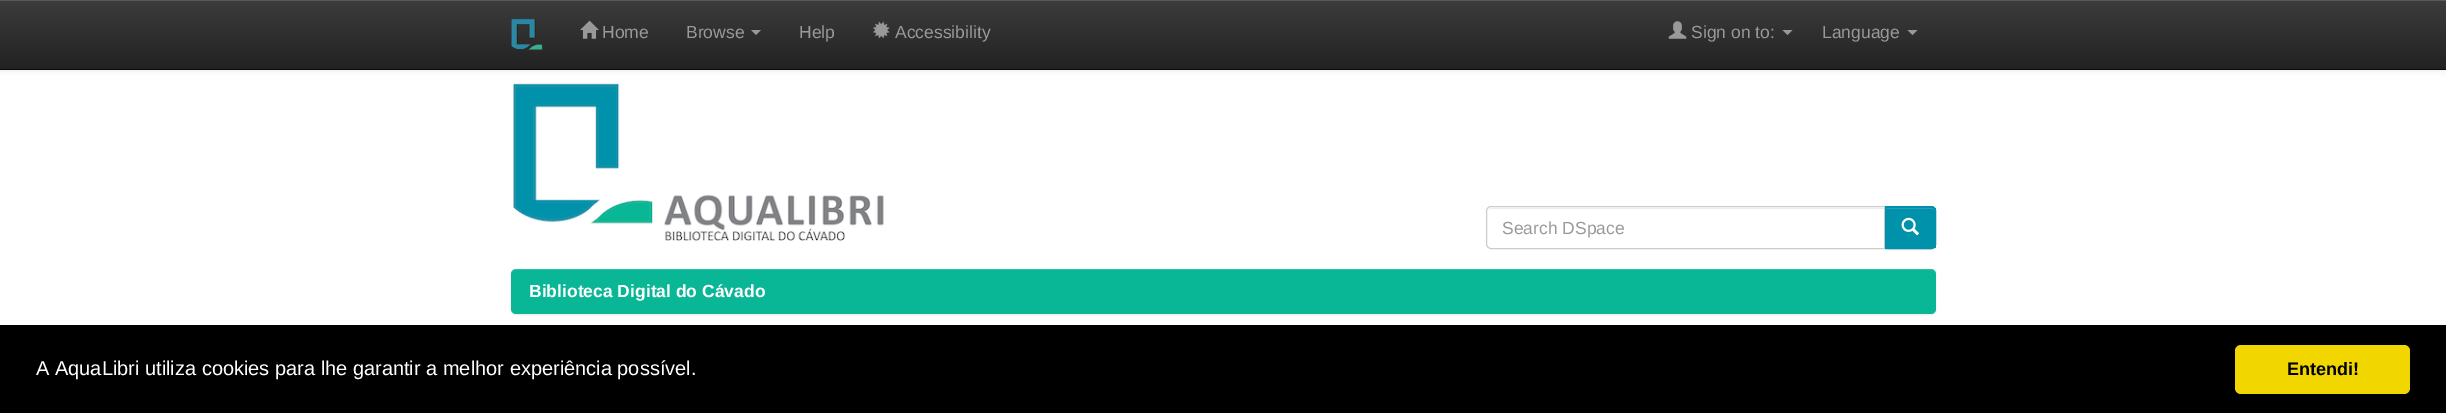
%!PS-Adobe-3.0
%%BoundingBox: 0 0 2446 413
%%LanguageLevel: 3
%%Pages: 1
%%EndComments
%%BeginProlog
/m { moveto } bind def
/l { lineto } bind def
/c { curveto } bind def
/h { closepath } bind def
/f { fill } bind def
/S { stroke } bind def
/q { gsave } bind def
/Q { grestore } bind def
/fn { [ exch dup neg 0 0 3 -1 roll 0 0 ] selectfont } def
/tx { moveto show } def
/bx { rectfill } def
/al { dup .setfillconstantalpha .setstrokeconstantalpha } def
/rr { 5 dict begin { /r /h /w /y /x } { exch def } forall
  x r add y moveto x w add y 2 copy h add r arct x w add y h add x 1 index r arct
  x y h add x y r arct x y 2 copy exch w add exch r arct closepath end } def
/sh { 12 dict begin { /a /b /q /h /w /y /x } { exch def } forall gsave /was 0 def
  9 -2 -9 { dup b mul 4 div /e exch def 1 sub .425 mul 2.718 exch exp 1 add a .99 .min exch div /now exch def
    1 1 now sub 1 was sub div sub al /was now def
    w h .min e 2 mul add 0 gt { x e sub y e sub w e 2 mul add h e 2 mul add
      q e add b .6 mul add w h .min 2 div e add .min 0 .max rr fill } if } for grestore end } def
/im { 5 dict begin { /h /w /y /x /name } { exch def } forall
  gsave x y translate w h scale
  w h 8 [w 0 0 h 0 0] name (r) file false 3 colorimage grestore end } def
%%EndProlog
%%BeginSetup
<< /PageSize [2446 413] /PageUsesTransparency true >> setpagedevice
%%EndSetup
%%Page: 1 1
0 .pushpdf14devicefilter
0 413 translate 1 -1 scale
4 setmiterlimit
1 setgray
0 0 2446 413 bx
0 setgray
0 1 2446 70 0 3 0.07 sh
q 0 1 m 2446 1 l 2446 69 l 0 69 l h clip newpath
<< /ShadingType 2 /ColorSpace /DeviceRGB /Coords [1223 0 1223 69] /Extend [true true] /Function << /FunctionType 2 /Domain [0 1] /C0 [0.235 0.235 0.235] /C1 [0.133 0.133 0.133] /N 1 >> >> shfill Q
0.349 setgray
0 0 2446 1 bx
0.031 setgray
0 69 2446 1 bx
(image0.raw) 511 18 32 32 im
(image1.raw) 580 20 19 19 im
/LiberationSans-Regular 17.5 fn
0.6 setgray
(Home) 602 38 tx
(Browse) 686 38 tx
751 30 m 761 30 l 756 35 l h f
(Help) 799 38 tx
(image2.raw) 873 21 17 18 im
(Accessibility) 895 38 tx
(image3.raw) 1668 21 19 18 im
(Sign on to:) 1691 38 tx
1782.5 30 m 1792.5 30 l 1787.5 35 l h f
(Language) 1822 38 tx
1907.5 30 m 1917.5 30 l 1912.5 35 l h f
(image4.raw) 513 83 371 158 im
0.925 setgray
1491 209 m 1884 209 l 1884 208 l 1492 208 l 1491 208 1489 209 1489 210 c h f
0.8 setgray
1491 206.5 m 1884.5 206.5 l 1884.5 248.5 l 1491 248.5 l 1488.5 248.5 1486.5 246.5 1486.5 244 c 1486.5 211 l 1486.5 208.5 1488.5 206.5 1491 206.5 c h S
0.6 setgray
(Search DSpace) 1502 234 tx
0 setgray
1885 208 51 42 5 0.5 0.07 sh
0 0.573 0.667 setrgbcolor
1885 206 m 1931 206 l 1934 206 1936 208 1936 211 c 1936 244 l 1936 247 1934 249 1931 249 c 1885 249 l h f
q
1885 206 m 1931 206 l 1934 206 1936 208 1936 211 c 1936 244 l 1936 247 1934 249 1931 249 c 1885 249 l h clip newpath
1886 208 50 40 bx
Q
0.149 0.635 0.718 setrgbcolor
1886 209 m 1931 209 l 1933 209 1935 210 1935 212 c 1935 210 1933 208 1931 208 c 1886 208 l h f
0 0.573 0.667 setrgbcolor
1885.5 206.5 m 1931 206.5 l 1933.5 206.5 1935.5 208.5 1935.5 211 c 1935.5 244 l 1935.5 246.5 1933.5 248.5 1931 248.5 c 1885.5 248.5 l h S
(image5.raw) 1901 217 18 19 im
0 setgray
511 270 1425 45 5 0.5 0.07 sh
0.035 0.714 0.584 setrgbcolor
511 269 1425 45 5 rr f
0.15 al
1 setgray
516 270 m 1931 270 l 1934 270 1936 272 1936 275 c 1936 272 1934 269 1931 269 c 516 269 l 513 269 511 272 511 275 c 511 272 513 270 516 270 c h f
/LiberationSans-Bold 17.5 fn
1 al
(Biblioteca Digital do Cávado) 529 297 tx
0 setgray
0 325 2446 88 bx
/LiberationSans-Regular 20 fn
1 setgray
(A AquaLibri utiliza cookies para lhe garantir a melhor experiência possível.) 36 375 tx
0.945 0.839 0 setrgbcolor
2235 345 175 49 6 rr f
/LiberationSans-Bold 18 fn
0 setgray
(Entendi!) 2287 375 tx
.poppdf14devicefilter showpage
%%EOF
